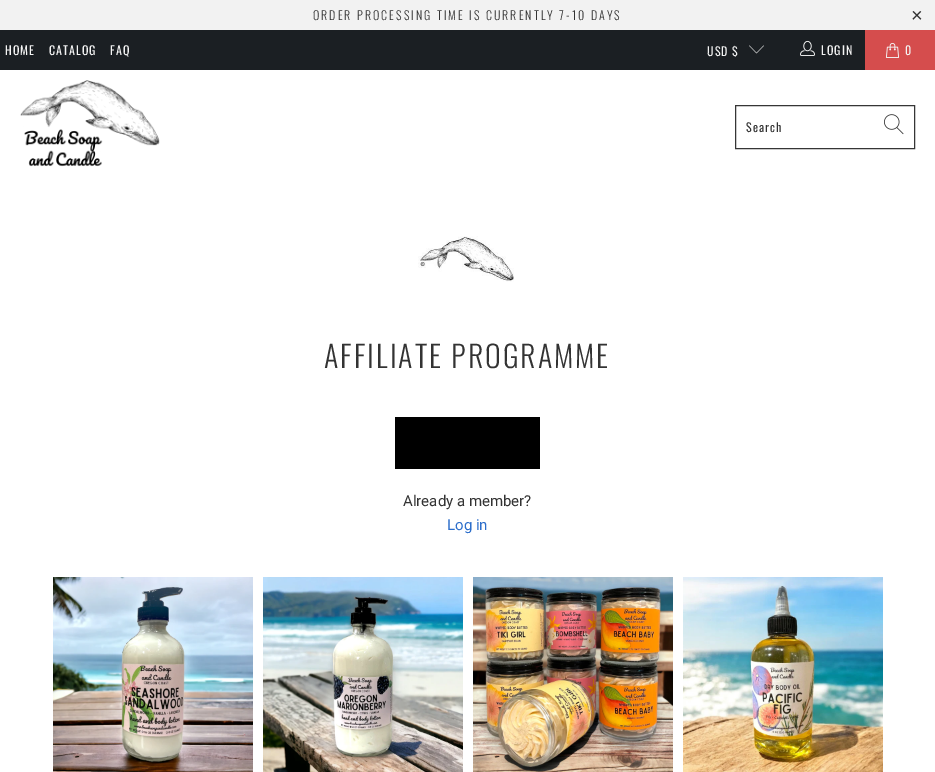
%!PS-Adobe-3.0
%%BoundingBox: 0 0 935 772
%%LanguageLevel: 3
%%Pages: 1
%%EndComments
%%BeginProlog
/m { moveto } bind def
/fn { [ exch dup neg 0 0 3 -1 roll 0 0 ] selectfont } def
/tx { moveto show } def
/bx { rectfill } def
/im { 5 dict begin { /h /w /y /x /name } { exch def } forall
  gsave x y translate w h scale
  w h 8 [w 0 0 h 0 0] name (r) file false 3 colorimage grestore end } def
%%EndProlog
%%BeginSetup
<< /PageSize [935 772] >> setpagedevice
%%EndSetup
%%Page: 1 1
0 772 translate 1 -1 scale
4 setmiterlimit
1 setgray
0 0 935 772 bx
0.949 setgray
0 0 935 30 bx
/Oswald-Light 12 fn
0.2 setgray
313 20 m 2 0 (ORDER PROCESSING TIME IS CURRENTLY 7-10 DAYS) ashow
/LiberationSans-Regular 20 fn
911 22 m 2 0 (×) ashow
0.106 0.122 0.137 setrgbcolor
0 30 865 40 bx
/Oswald-Regular 12 fn
0.957 setgray
5 55 m 1 0 (HOME) ashow
49 55 m 1 0 (CATALOG) ashow
110 55 m 1 0 (FAQ) ashow
707 56 m 1 0 (USD $) ashow
(image0.raw) 749 45 15 9 im
(image1.raw) 800 40 15 16 im
821 55 m 1 0 (LOGIN) ashow
0.835 0.302 0.302 setrgbcolor
865 30 70 40 bx
(image2.raw) 885 43 15 15 im
0.957 setgray
905 55 m 1 0 (0) ashow
(image3.raw) 20 80 140 87 im
0.212 setgray
735.5 105.5 179 43 rectstroke
0.2 setgray
746 132 m 1 0 (Search) ashow
(image4.raw) 884 114 20 21 im
(image5.raw) 418 236 96 46 im
/Oswald-Light 30 fn
324 368 m 2 0 (AFFILIATE PROGRAMME) ashow
0 setgray
395 417 145 52 bx
/Roboto-Regular 15 fn
0.2 setgray
(Already a member?) 403 506 tx
0.173 0.431 0.796 setrgbcolor
(Log in) 447 530 tx
(image6.raw) 53 577 200 195 im
(image7.raw) 263 577 200 195 im
(image8.raw) 473 577 200 195 im
(image9.raw) 683 577 200 195 im
showpage
%%EOF
